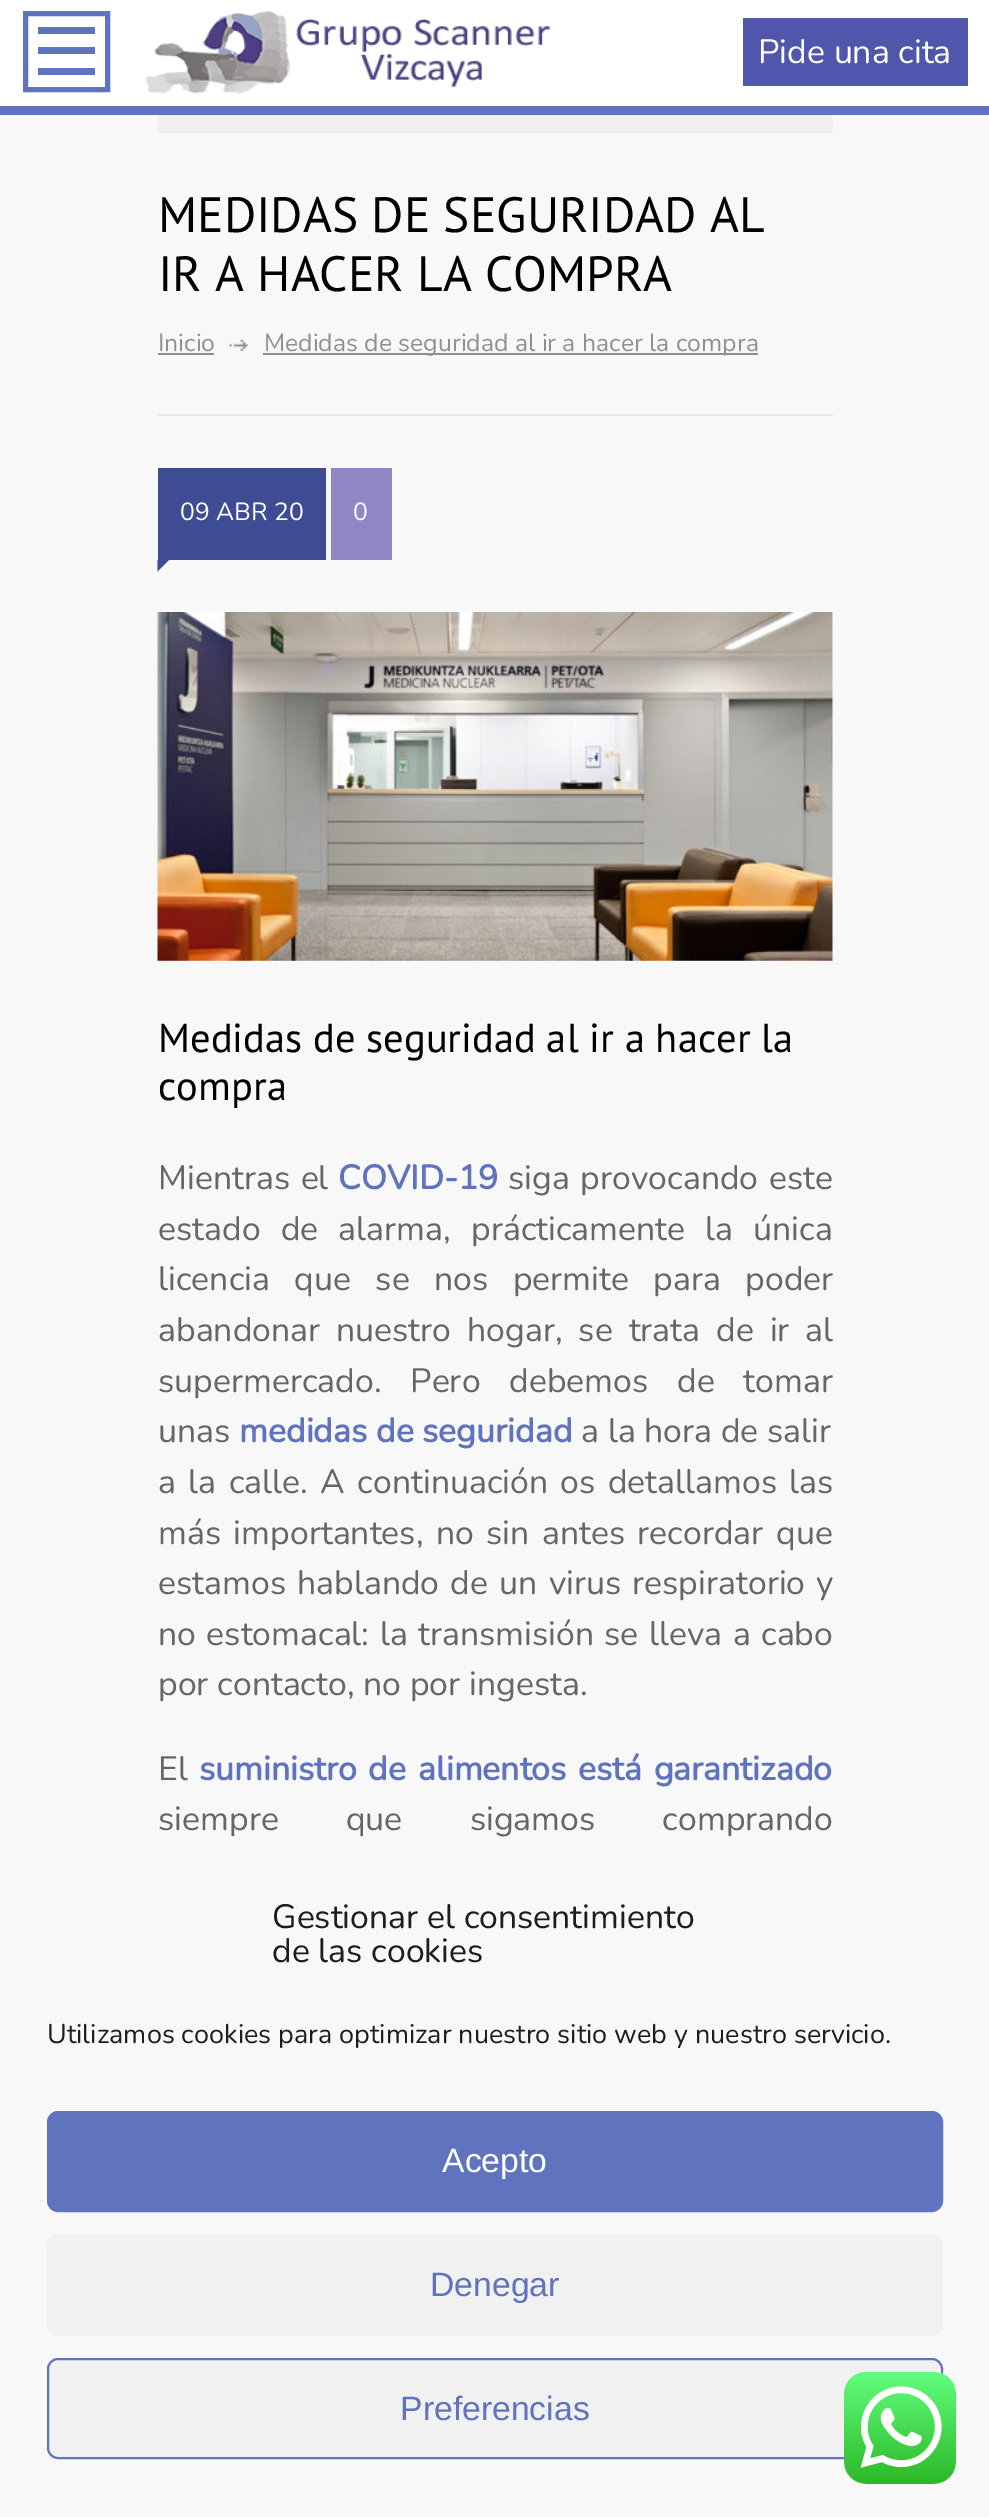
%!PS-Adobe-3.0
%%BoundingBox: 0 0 989 2517
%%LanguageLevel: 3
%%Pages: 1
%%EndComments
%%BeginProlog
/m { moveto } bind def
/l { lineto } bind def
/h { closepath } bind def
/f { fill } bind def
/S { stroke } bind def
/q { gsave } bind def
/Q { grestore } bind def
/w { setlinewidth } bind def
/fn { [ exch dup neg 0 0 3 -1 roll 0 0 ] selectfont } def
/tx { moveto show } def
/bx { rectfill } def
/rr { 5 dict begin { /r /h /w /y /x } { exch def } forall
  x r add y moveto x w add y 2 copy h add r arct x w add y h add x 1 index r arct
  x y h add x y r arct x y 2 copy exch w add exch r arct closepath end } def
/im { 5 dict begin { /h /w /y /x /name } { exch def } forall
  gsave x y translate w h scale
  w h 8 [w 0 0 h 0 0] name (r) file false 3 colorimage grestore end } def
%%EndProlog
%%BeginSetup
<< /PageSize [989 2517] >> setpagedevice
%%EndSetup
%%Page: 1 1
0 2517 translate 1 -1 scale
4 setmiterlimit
0.973 setgray
0 0 989 2517 bx
1 setgray
0 0 989 106 bx
0.373 0.451 0.749 setrgbcolor
0 106 989 9 bx
5 w
25.5 13.5 82 76 rectstroke
38 27 57 7 bx
38 47 57 7 bx
38 68 57 7 bx
(image0.raw) 145 11 406 83 im
0.314 0.337 0.675 setrgbcolor
743 18 225 68 bx
/Nunito-ExtraLight 33.75 fn
1 setgray
(Pide una cita) 758 63 tx
0.941 setgray
158 115 675 18 bx
0.91 setgray
158 414 675 2 bx
/PTSans-Regular 49.5 fn
0 setgray
(MEDIDAS DE SEGURIDAD AL) 158 232 tx
(IR A HACER LA COMPRA) 158 291 tx
/Nunito-ExtraLight 24.75 fn
0.565 setgray
(Inicio) 158 351 tx
158 353 56 2 bx
(image1.raw) 229 339 19 12 im
263 353 495 2 bx
(Medidas de seguridad al ir a hacer la compra) 264 351 tx
0.243 0.298 0.58 setrgbcolor
158 468 168 92 bx
1 setgray
(09 ABR 20) 180 520 tx
0.243 0.298 0.58 setrgbcolor
157.5 560 m 169 560 l 157.5 571.5 l h f
0.569 0.529 0.769 setrgbcolor
331 468 61 92 bx
1 setgray
(0) 353 520 tx
(image2.raw) 157 612 676 349 im
/PTSans-Regular 40.5 fn
0 setgray
(Medidas de seguridad al ir a hacer la) 158 1052 tx
(compra) 158 1100 tx
/Nunito-ExtraLight 33.75 fn
0.4 setgray
158 1189 m 2 0 32 (Mientras el) widthshow
/Nunito-Bold 33.75 fn
0.373 0.451 0.749 setrgbcolor
(COVID-19) 338 1189 tx
/Nunito-ExtraLight 33.75 fn
0.4 setgray
508 1189 m 2 0 32 (siga provocando este) widthshow
158 1240 m 11.5 0 32 (estado de alarma, prácticamente la única) widthshow
158 1290 m 15.75 0 32 (licencia que se nos permite para poder) widthshow
158 1341 m 7.25 0 32 (abandonar nuestro hogar, se trata de ir al) widthshow
158 1392 m 20 0 32 (supermercado. Pero debemos de tomar) widthshow
(unas) 158 1442 tx
/Nunito-Bold 33.75 fn
0.373 0.451 0.749 setrgbcolor
(medidas de seguridad) 239 1442 tx
/Nunito-ExtraLight 33.75 fn
0.4 setgray
(a la hora de salir) 581 1442 tx
158 1493 m 3.75 0 32 (a la calle. A continuación os detallamos las) widthshow
158 1544 m 3.75 0 32 (más importantes, no sin antes recordar que) widthshow
158 1594 m 2.5 0 32 (estamos hablando de un virus respiratorio y) widthshow
158 1645 m 1.75 0 32 (no estomacal: la transmisión se lleva a cabo) widthshow
(por contacto, no por ingesta.) 158 1695 tx
(El) 158 1780 tx
/Nunito-Bold 33.75 fn
0.373 0.451 0.749 setrgbcolor
199 1780 m 3 0 32 (suministro de alimentos está garantizado) widthshow
/Nunito-ExtraLight 33.75 fn
0.4 setgray
158 1830 m 58.5 0 32 (siempre que sigamos comprando) widthshow
0.098 0.118 0.137 setrgbcolor
(Gestionar el consentimiento) 272 1928 tx
(de las cookies) 272 1962 tx
/Nunito-ExtraLight 27 fn
(Utilizamos cookies para optimizar nuestro sitio web y nuestro servicio.) 47 2043 tx
0.373 0.451 0.749 setrgbcolor
48 2112 894 99 10 rr q f Q
2 w
S
/LiberationSans-Regular 33.75 fn
1 setgray
(Acepto) 442 2172 tx
0.945 setgray
47 2234 896 102 11 rr f
0.373 0.451 0.749 setrgbcolor
(Denegar) 430 2296 tx
0.945 setgray
48 2359 894 99 10 rr q f Q
0.373 0.451 0.749 setrgbcolor
S
(Preferencias) 400 2420 tx
(image3.raw) 844 2372 112 112 im
showpage
%%EOF
